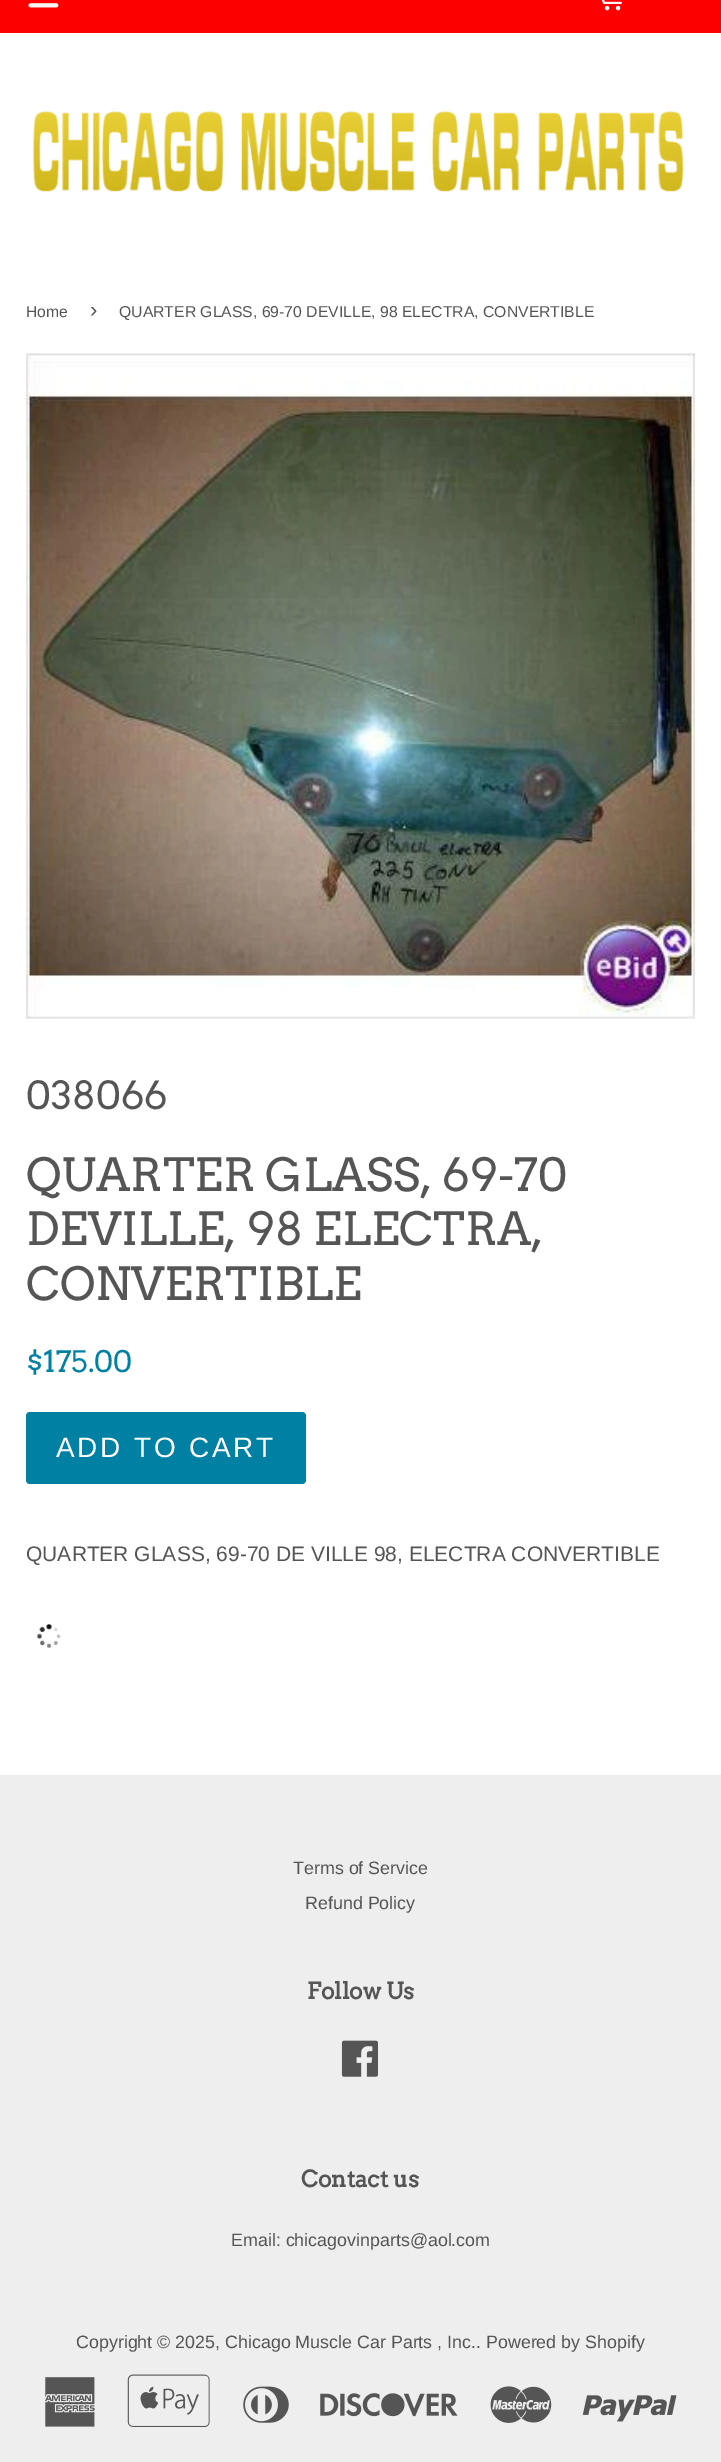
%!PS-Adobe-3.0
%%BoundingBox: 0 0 721 2462
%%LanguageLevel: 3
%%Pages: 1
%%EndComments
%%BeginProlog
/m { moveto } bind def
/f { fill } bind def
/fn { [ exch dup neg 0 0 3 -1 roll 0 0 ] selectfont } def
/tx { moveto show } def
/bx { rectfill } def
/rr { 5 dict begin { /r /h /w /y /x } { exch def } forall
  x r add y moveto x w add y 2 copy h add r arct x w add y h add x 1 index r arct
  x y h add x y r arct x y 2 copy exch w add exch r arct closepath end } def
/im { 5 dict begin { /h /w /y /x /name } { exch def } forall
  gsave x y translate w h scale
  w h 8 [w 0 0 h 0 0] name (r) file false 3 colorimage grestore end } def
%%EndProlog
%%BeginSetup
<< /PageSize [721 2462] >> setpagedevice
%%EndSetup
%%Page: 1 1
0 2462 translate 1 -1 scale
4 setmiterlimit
1 setgray
0 0 721 2462 bx
0.988 0 0 setrgbcolor
0 0 721 33 bx
(image0.raw) 28 3 31 5 im
(image1.raw) 601 0 21 11 im
(image2.raw) 32 111 652 81 im
/LiberationSans-Regular 15.75 fn
0.333 setgray
(Home) 26 317 tx
/LiberationSans-Regular 22 fn
(›) 90 317 tx
/LiberationSans-Regular 15.75 fn
(QUARTER GLASS, 69-70 DEVILLE, 98 ELECTRA, CONVERTIBLE) 119 317 tx
(image3.raw) 26 353 669 666 im
/Arvo-Regular 38.5 fn
(038066) 26 1109 tx
/Arvo-Regular 45.5 fn
(QUARTER GLASS, 69-70) 26 1191 tx
(DEVILLE, 98 ELECTRA,) 26 1245 tx
(CONVERTIBLE) 26 1300 tx
/Arvo-Regular 29.5 fn
0 0.506 0.639 setrgbcolor
($175.00) 26 1372 tx
26 1412 280 72 4 rr f
/LiberationSans-Regular 28 fn
1 setgray
56 1457 m 2.75 0 (ADD TO CART) ashow
/LiberationSans-Regular 21 fn
0.333 setgray
(QUARTER GLASS, 69-70 DE VILLE 98, ELECTRA CONVERTIBLE) 26 1561 tx
(image4.raw) 36 1624 25 25 im
0.933 setgray
0 1775 721 687 bx
/LiberationSans-Regular 17.85 fn
0.333 setgray
(Terms of Service) 293 1874 tx
(Refund Policy) 305 1909 tx
/Arvo-Bold 22.75 fn
(Follow Us) 307 1999 tx
(image5.raw) 341 2040 37 37 im
(Contact us) 301 2187 tx
/LiberationSans-Regular 17.85 fn
(Email: chicagovinparts@aol.com) 231 2246 tx
(Copyright © 2025, Chicago Muscle Car Parts , Inc.. Powered by Shopify) 76 2348 tx
(image6.raw) 45 2377 50 50 im
(image7.raw) 127 2374 83 53 im
(image8.raw) 243 2386 46 37 im
(image9.raw) 320 2393 138 24 im
(image10.raw) 490 2386 62 37 im
(image11.raw) 582 2395 95 27 im
showpage
%%EOF
